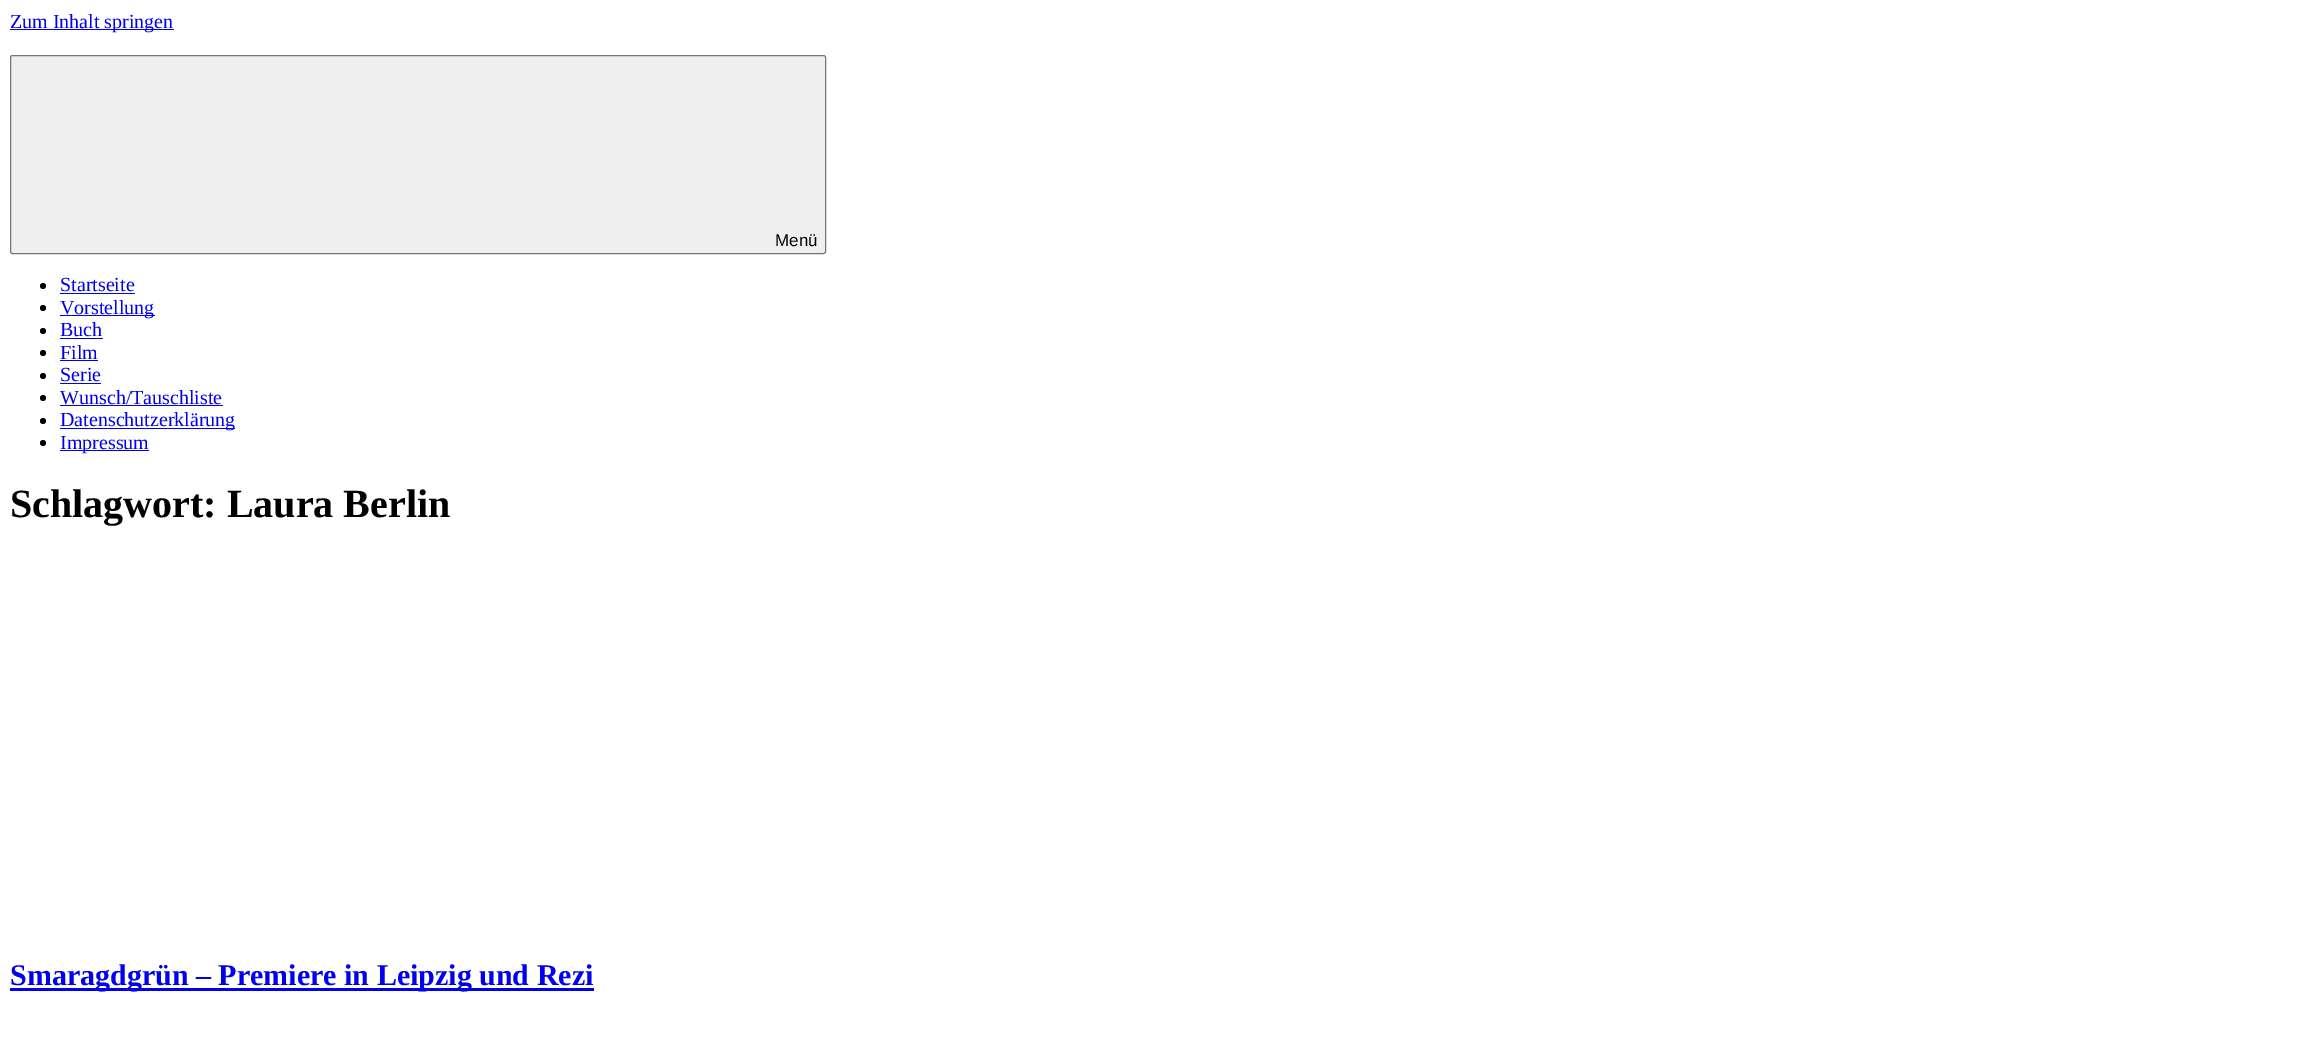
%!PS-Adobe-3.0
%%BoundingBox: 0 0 2313 1047
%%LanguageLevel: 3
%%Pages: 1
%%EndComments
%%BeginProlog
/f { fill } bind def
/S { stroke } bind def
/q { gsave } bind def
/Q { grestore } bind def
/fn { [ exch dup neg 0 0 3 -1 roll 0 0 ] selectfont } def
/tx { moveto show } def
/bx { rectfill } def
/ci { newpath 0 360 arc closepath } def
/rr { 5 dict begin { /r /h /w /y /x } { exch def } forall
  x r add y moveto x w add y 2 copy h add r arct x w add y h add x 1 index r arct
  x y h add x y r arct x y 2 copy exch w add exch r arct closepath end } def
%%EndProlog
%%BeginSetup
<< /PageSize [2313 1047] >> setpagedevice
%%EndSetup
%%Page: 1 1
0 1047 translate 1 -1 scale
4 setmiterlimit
1 setgray
0 0 2313 1047 bx
0 0 0.933 setrgbcolor
10 29 164 1 bx
/LiberationSerif-Regular 20 fn
(Zum Inhalt springen) 10 28 tx
0.937 setgray
10.5 55.5 815 198 2 rr q f Q
0.463 setgray
S
/LiberationSans-Regular 17 fn
0 setgray
(Menü) 775 246 tx
43 286 3 ci f
/LiberationSerif-Regular 20 fn
0 0 0.933 setrgbcolor
(Startseite) 60 291 tx
60 293 75 1 bx
0 setgray
43 308 3 ci f
0 0 0.933 setrgbcolor
60 315 95 1 bx
(Vorstellung) 60 314 tx
0 setgray
43 331 3 ci f
0 0 0.933 setrgbcolor
(Buch) 60 336 tx
60 338 43 1 bx
0 setgray
43 353 3 ci f
0 0 0.933 setrgbcolor
(Film) 60 359 tx
60 360 38 1 bx
0 setgray
43 376 3 ci f
0 0 0.933 setrgbcolor
(Serie) 60 381 tx
60 383 41 1 bx
0 setgray
43 398 3 ci f
0 0 0.933 setrgbcolor
(Wunsch/Tauschliste) 60 404 tx
60 405 163 1 bx
0 setgray
43 421 3 ci f
0 0 0.933 setrgbcolor
60 428 175 1 bx
(Datenschutzerklärung) 60 426 tx
0 setgray
43 443 3 ci f
0 0 0.933 setrgbcolor
60 450 89 1 bx
(Impressum) 60 449 tx
/LiberationSerif-Bold 40 fn
0 setgray
(Schlagwort: Laura Berlin) 10 517 tx
0 0 0.933 setrgbcolor
10 988 584 3 bx
/LiberationSerif-Bold 30 fn
(Smaragdgrün – Premiere in Leipzig und Rezi) 10 985 tx
showpage
%%EOF
